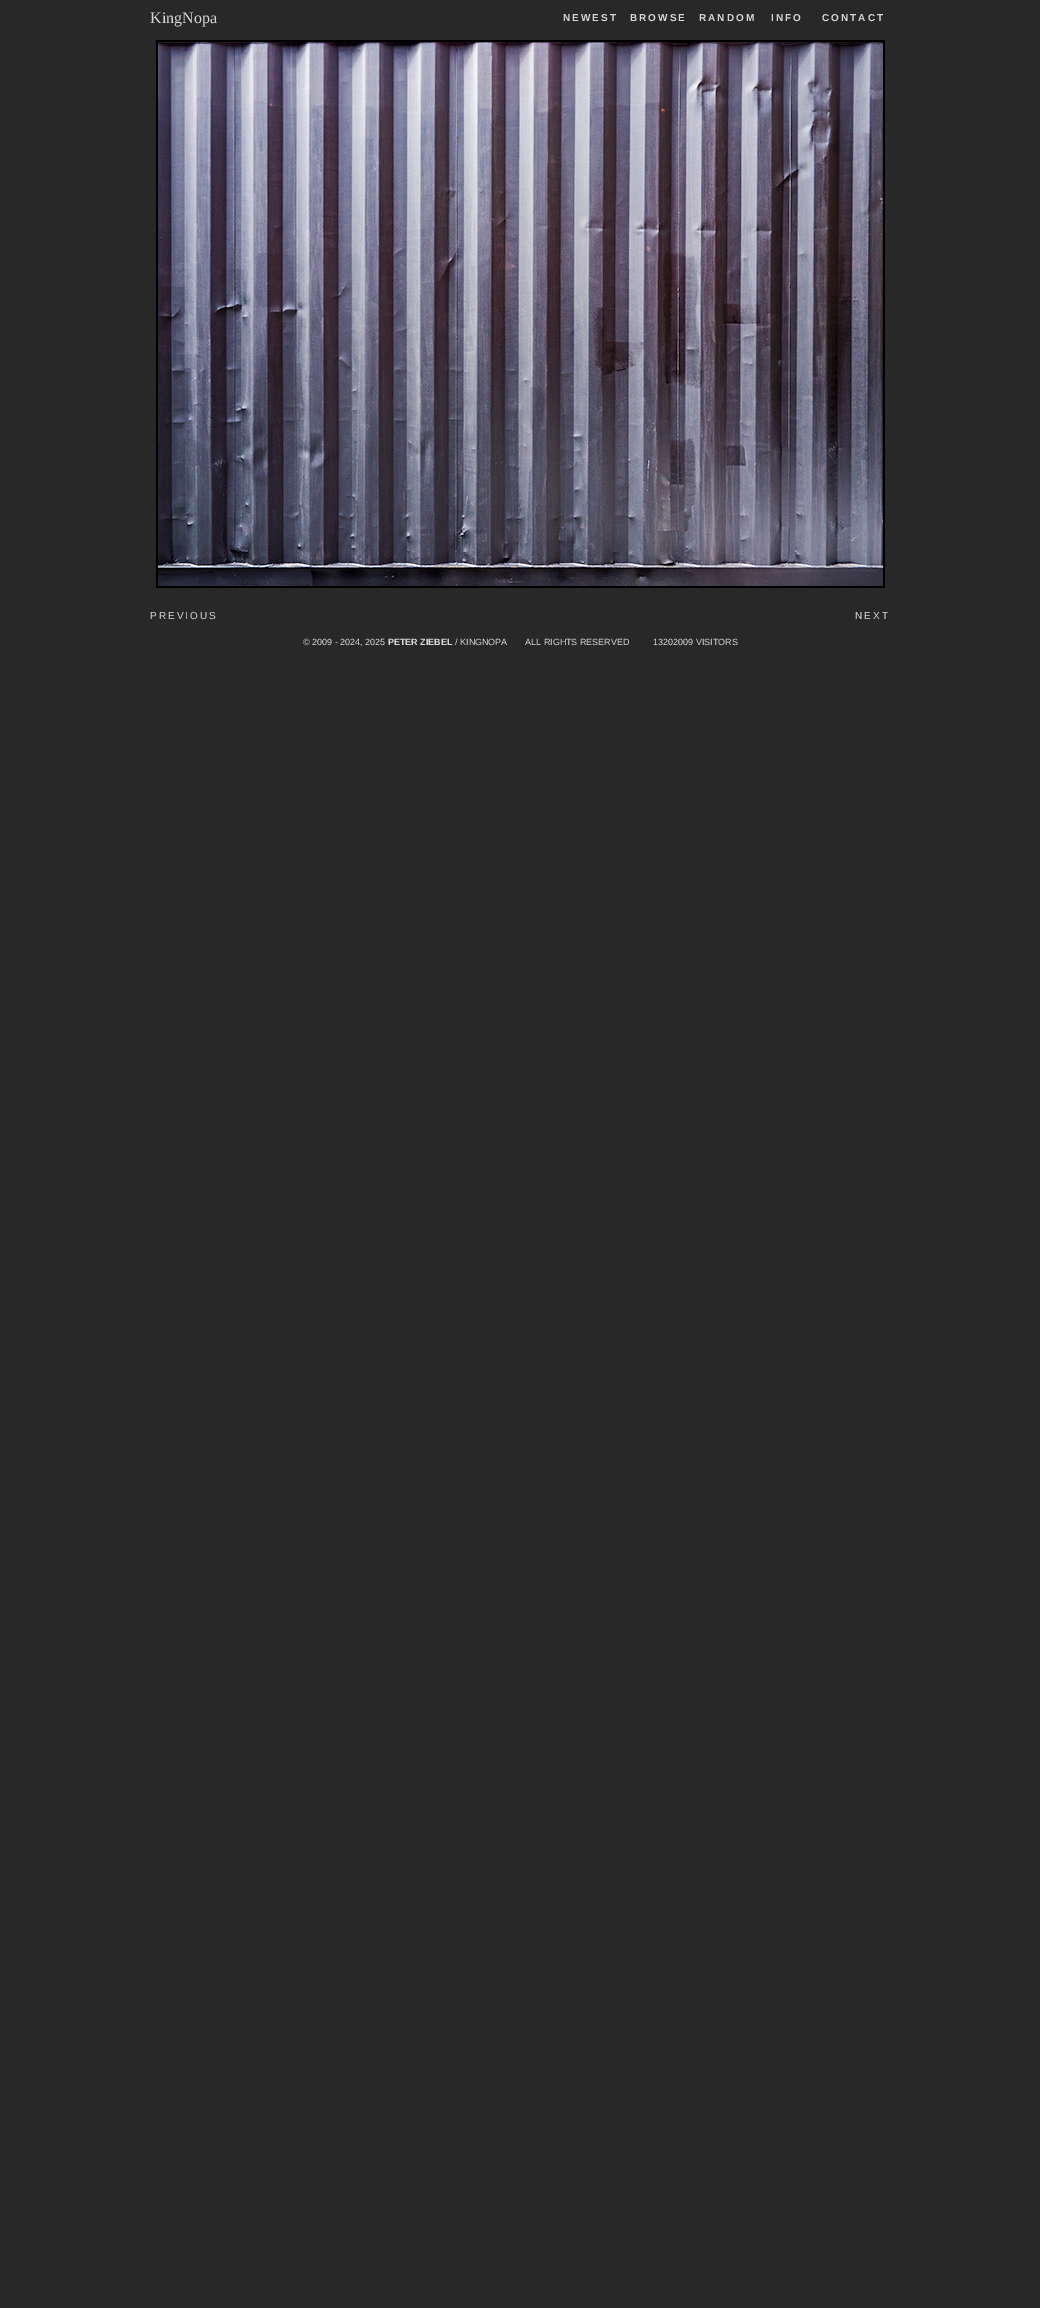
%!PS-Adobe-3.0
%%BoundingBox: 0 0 1040 2308
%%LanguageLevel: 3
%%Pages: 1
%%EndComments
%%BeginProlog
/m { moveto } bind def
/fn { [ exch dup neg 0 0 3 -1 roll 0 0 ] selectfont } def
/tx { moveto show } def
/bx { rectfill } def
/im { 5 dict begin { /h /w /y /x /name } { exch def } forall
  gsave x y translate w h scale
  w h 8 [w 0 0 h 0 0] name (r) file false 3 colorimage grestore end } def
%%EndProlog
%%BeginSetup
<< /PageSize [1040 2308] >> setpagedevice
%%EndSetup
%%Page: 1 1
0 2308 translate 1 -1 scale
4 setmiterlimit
0.157 setgray
0 0 1040 2308 bx
/LiberationSerif-Regular 16 fn
0.847 setgray
(KingNopa) 150 23 tx
/LiberationSans-Bold 10 fn
563 21 m 2 0 (NEWEST) ashow
630 21 m 2 0 (BROWSE) ashow
699 21 m 2 0 (RANDOM) ashow
771 21 m 2 0 (INFO) ashow
822 21 m 2 0 (CONTACT) ashow
0 setgray
156 40 729 548 bx
(image0.raw) 158 42 725 544 im
/LiberationSans-Regular 10 fn
0.847 setgray
150 619 m 2 0 (PREVIOUS) ashow
855 619 m 2 0 (NEXT) ashow
/LiberationSans-Regular 9 fn
(© 2009 - 2024, 2025) 303 645 tx
/LiberationSans-Bold 9 fn
(PETER ZIEBEL) 388 645 tx
/LiberationSans-Regular 9 fn
(/ KINGNOPA) 455 645 tx
(ALL RIGHTS RESERVED) 525 645 tx
(13202009 VISITORS) 653 645 tx
showpage
%%EOF
